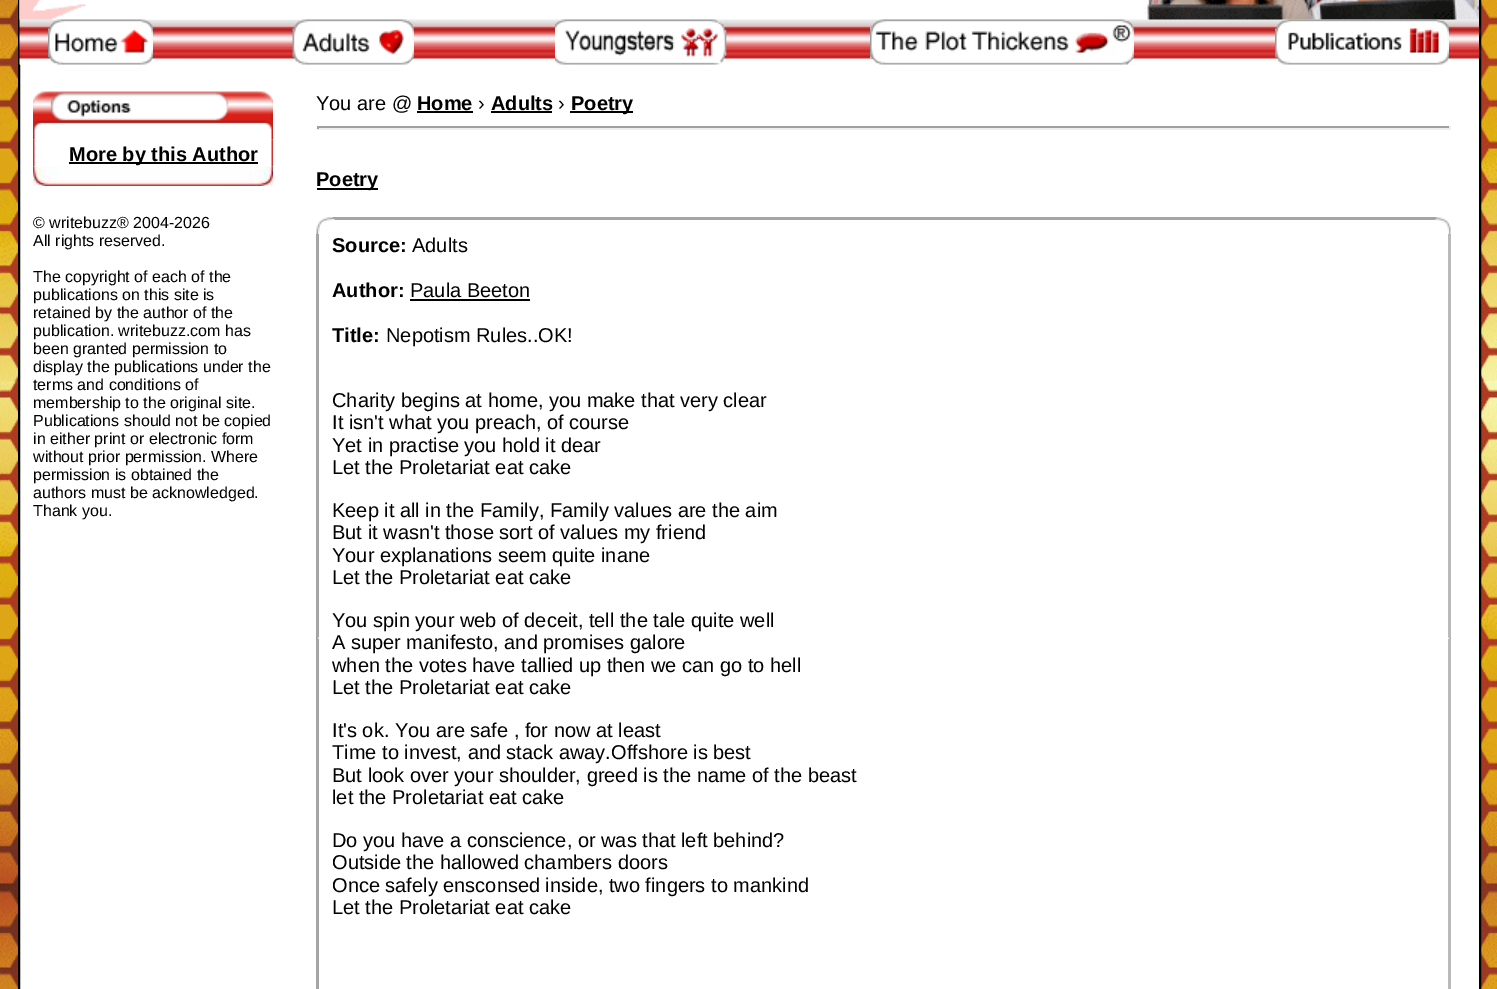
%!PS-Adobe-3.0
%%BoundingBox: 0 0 1497 989
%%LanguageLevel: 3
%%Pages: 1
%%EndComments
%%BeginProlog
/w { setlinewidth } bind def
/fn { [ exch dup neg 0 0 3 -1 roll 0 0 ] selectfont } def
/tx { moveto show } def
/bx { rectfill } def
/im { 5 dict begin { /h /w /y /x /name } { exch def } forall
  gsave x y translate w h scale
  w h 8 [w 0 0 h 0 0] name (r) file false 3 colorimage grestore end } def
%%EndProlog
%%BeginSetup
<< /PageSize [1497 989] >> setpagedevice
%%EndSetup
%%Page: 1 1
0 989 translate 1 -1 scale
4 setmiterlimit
1 setgray
0 0 1497 989 bx
(image0.raw) 0 0 1497 989 im
20 64 1459 925 bx
0 setgray
2 w
19 -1 1461 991 rectstroke
(image1.raw) 19 0 1460 65 im
(image2.raw) 19 0 354 20 im
(image3.raw) 1144 0 335 20 im
(image4.raw) 48 19 105 46 im
(image5.raw) 292 19 122 46 im
(image6.raw) 555 19 172 46 im
(image7.raw) 870 19 264 46 im
(image8.raw) 1275 19 174 46 im
(image10.raw) 33 139 240 28 im
(image9.raw) 33 91 240 49 im
69 162 189 2 bx
/LiberationSans-Bold 20 fn
(More by this Author) 69 161 tx
(image11.raw) 33 166 240 20 im
/LiberationSans-Regular 16 fn
(© writebuzz® 2004-2026) 33 228 tx
(All rights reserved.) 33 246 tx
(The copyright of each of the) 33 282 tx
(publications on this site is) 33 300 tx
(retained by the author of the) 33 318 tx
(publication. writebuzz.com has) 33 336 tx
(been granted permission to) 33 354 tx
(display the publications under the) 33 372 tx
(terms and conditions of) 33 390 tx
(membership to the original site.) 33 408 tx
(Publications should not be copied) 33 426 tx
(in either print or electronic form) 33 444 tx
(without prior permission. Where) 33 462 tx
(permission is obtained the) 33 480 tx
(authors must be acknowledged.) 33 498 tx
(Thank you.) 33 516 tx
/LiberationSans-Regular 20 fn
(You are @) 316 110 tx
/LiberationSans-Bold 20 fn
(Home) 417 110 tx
417 111 56 2 bx
/LiberationSans-Regular 20 fn
(›) 478 110 tx
/LiberationSans-Bold 20 fn
(Adults) 491 110 tx
491 111 61 2 bx
/LiberationSans-Regular 20 fn
(›) 558 110 tx
570 111 63 2 bx
/LiberationSans-Bold 20 fn
(Poetry) 571 110 tx
0.624 setgray
317 126 1134 2 bx
0.933 setgray
1449 126 2 3 bx
317 128 1134 2 bx
0.624 setgray
317 126 2 3 bx
0 setgray
317 188 61 2 bx
(Poetry) 316 186 tx
(image12.raw) 316 217 17 17 im
0.647 setgray
333 217 1103 3 bx
(image13.raw) 333 217 2 3 im
(image14.raw) 1435 217 16 17 im
316 234 3 755 bx
(image15.raw) 316 637 3 2 im
0 setgray
(Source:) 332 252 tx
/LiberationSans-Regular 20 fn
(Adults) 412 252 tx
/LiberationSans-Bold 20 fn
(Author:) 332 297 tx
/LiberationSans-Regular 20 fn
(Paula Beeton) 410 297 tx
410 299 120 2 bx
/LiberationSans-Bold 20 fn
(Title:) 332 342 tx
/LiberationSans-Regular 20 fn
(Nepotism Rules..OK!) 386 342 tx
(Charity begins at home, you make that very clear) 332 407 tx
(It isn't what you preach, of course) 332 429 tx
(Yet in practise you hold it dear) 332 452 tx
(Let the Proletariat eat cake) 332 474 tx
(Keep it all in the Family, Family values are the aim) 332 517 tx
(But it wasn't those sort of values my friend) 332 539 tx
(Your explanations seem quite inane) 332 562 tx
(Let the Proletariat eat cake) 332 584 tx
(You spin your web of deceit, tell the tale quite well) 332 627 tx
(A super manifesto, and promises galore) 332 649 tx
(when the votes have tallied up then we can go to hell) 332 672 tx
(Let the Proletariat eat cake) 332 694 tx
(It's ok. You are safe , for now at least) 332 737 tx
(Time to invest, and stack away.Offshore is best) 332 759 tx
(But look over your shoulder, greed is the name of the beast) 332 782 tx
(let the Proletariat eat cake) 332 804 tx
(Do you have a conscience, or was that left behind?) 332 847 tx
(Outside the hallowed chambers doors) 332 869 tx
(Once safely ensconsed inside, two fingers to mankind) 332 892 tx
(Let the Proletariat eat cake) 332 914 tx
0.729 setgray
1448 234 3 755 bx
(image16.raw) 1448 637 3 2 im
showpage
%%EOF
